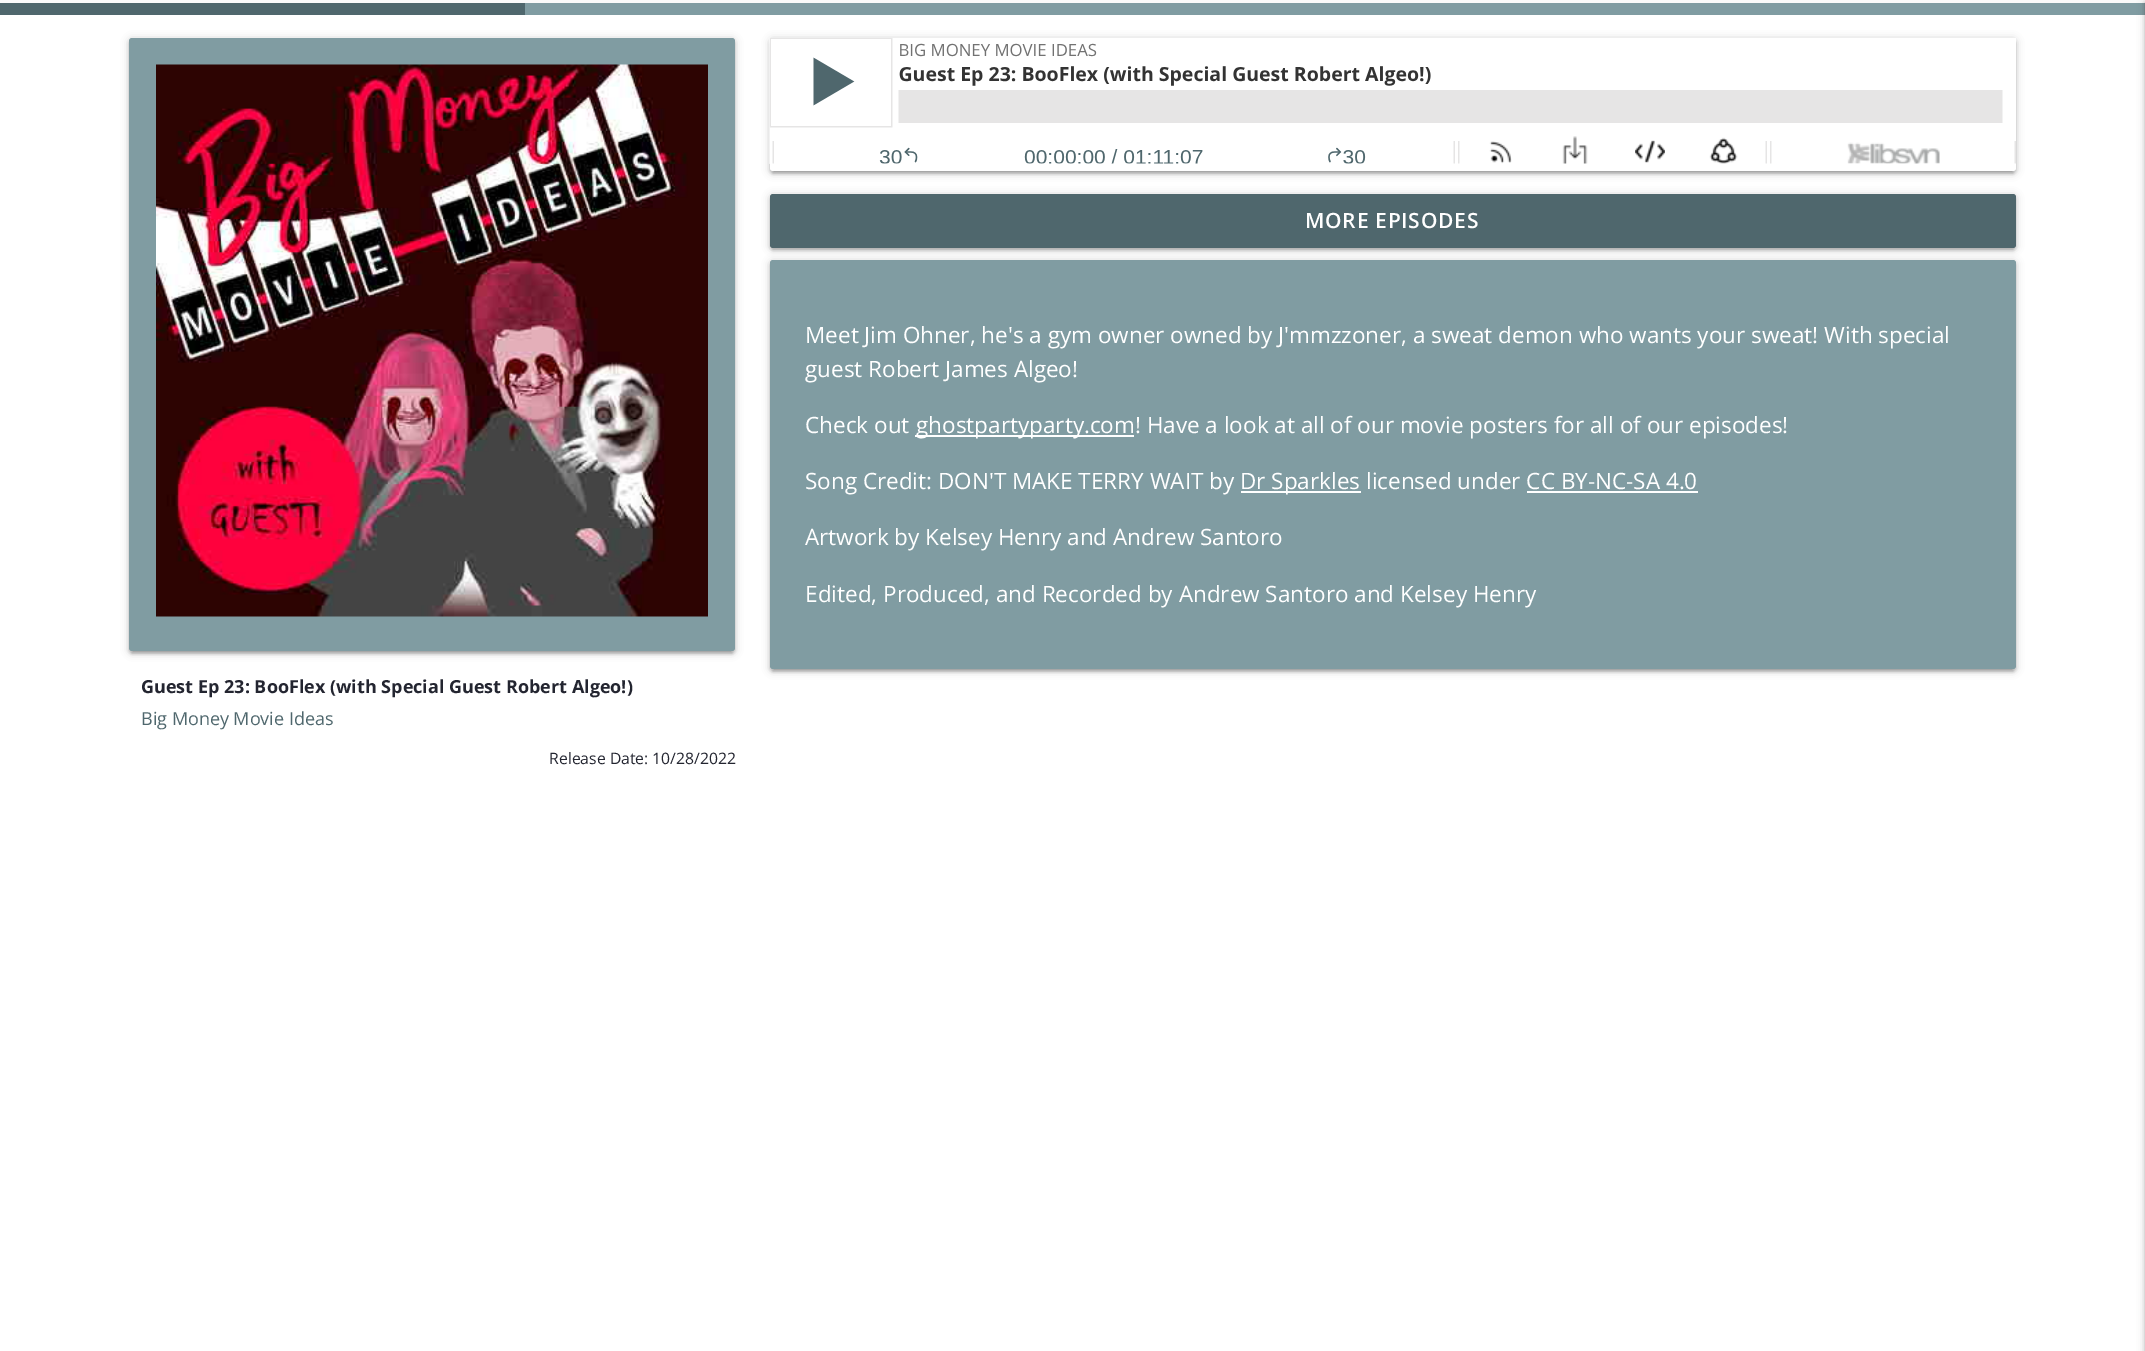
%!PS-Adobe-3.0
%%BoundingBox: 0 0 2145 1351
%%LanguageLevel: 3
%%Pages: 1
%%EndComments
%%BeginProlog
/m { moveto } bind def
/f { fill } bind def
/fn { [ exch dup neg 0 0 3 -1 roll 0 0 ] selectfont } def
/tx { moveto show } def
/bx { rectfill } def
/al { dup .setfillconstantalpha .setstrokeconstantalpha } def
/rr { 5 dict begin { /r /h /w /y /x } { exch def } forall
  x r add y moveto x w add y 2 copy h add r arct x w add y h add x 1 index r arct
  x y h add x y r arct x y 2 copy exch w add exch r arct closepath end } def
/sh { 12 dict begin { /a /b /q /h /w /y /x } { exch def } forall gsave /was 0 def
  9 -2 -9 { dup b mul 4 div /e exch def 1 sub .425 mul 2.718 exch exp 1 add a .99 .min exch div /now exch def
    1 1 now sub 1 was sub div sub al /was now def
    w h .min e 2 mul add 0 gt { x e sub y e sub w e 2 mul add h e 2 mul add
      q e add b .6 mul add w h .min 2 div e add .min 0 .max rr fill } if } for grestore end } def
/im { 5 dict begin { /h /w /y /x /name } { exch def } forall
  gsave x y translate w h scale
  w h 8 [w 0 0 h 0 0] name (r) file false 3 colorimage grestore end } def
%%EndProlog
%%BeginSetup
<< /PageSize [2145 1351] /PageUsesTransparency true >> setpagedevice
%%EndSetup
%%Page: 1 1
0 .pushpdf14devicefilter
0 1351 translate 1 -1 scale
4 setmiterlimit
1 setgray
0 0 2145 1351 bx
0.98 setgray
0 0 2145 3 bx
0.502 0.612 0.635 setrgbcolor
525 3 1620 12 bx
0.31 0.404 0.427 setrgbcolor
0 3 525 12 bx
0 setgray
770 39 1246 134 3 4 0.2 sh
773 45 1240 128 0 1 0.12 sh
770 41 1246 133 3 1.5 0.14 sh
1 setgray
770 38 1246 133 3 rr f
(image0.raw) 769 38 1247 126 im
0 setgray
770 195 1246 54 3 4 0.2 sh
773 201 1240 48 0 1 0.12 sh
770 197 1246 54 3 1.5 0.14 sh
0.31 0.404 0.427 setrgbcolor
770 194 1246 54 3 rr f
/OpenSans-SemiBold 21 fn
1 setgray
1305 228 m 0.75 0 (MORE EPISODES) ashow
0 setgray
770 261 1246 410 3 4 0.2 sh
773 267 1240 404 0 1 0.12 sh
770 263 1246 409 3 1.5 0.14 sh
0.502 0.612 0.635 setrgbcolor
770 260 1246 409 3 rr f
/OpenSans-Regular 22.5 fn
1 setgray
(Meet Jim Ohner, he's a gym owner owned by J'mmzzoner, a sweat demon who wants your sweat! With special) 805 343 tx
(guest Robert James Algeo!) 805 377 tx
(Check out) 805 433 tx
915 435 219 2 bx
(ghostpartyparty.com! Have a look at all of our movie posters for all of our episodes!) 916 433 tx
(Song Credit: DON'T MAKE TERRY WAIT by) 805 489 tx
1241 491 120 2 bx
(Dr Sparkles licensed under CC BY-NC-SA 4.0) 1240 489 tx
1527 491 171 2 bx
(Artwork by Kelsey Henry and Andrew Santoro) 805 545 tx
(Edited, Produced, and Recorded by Andrew Santoro and Kelsey Henry) 805 602 tx
0 setgray
129 39 606 614 3 4 0.2 sh
132 45 600 608 0 1 0.12 sh
129 41 606 613 3 1.5 0.14 sh
0.502 0.612 0.635 setrgbcolor
129 38 606 613 3 rr f
(image1.raw) 156 64 552 553 im
/OpenSans-Bold 18 fn
0.137 0.145 0.188 setrgbcolor
(Guest Ep 23: BooFlex \(with Special Guest Robert Algeo!\)) 141 693 tx
/OpenSans-Regular 18 fn
0.31 0.404 0.427 setrgbcolor
(Big Money Movie Ideas) 141 725 tx
/OpenSans-Regular 15.75 fn
0.137 0.145 0.188 setrgbcolor
(Release Date: 10/28/2022) 549 764 tx
0 setgray
2145 2 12 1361 0 4 0.2 sh
2145 3 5 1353 0 1.5 0.14 sh
.poppdf14devicefilter showpage
%%EOF
